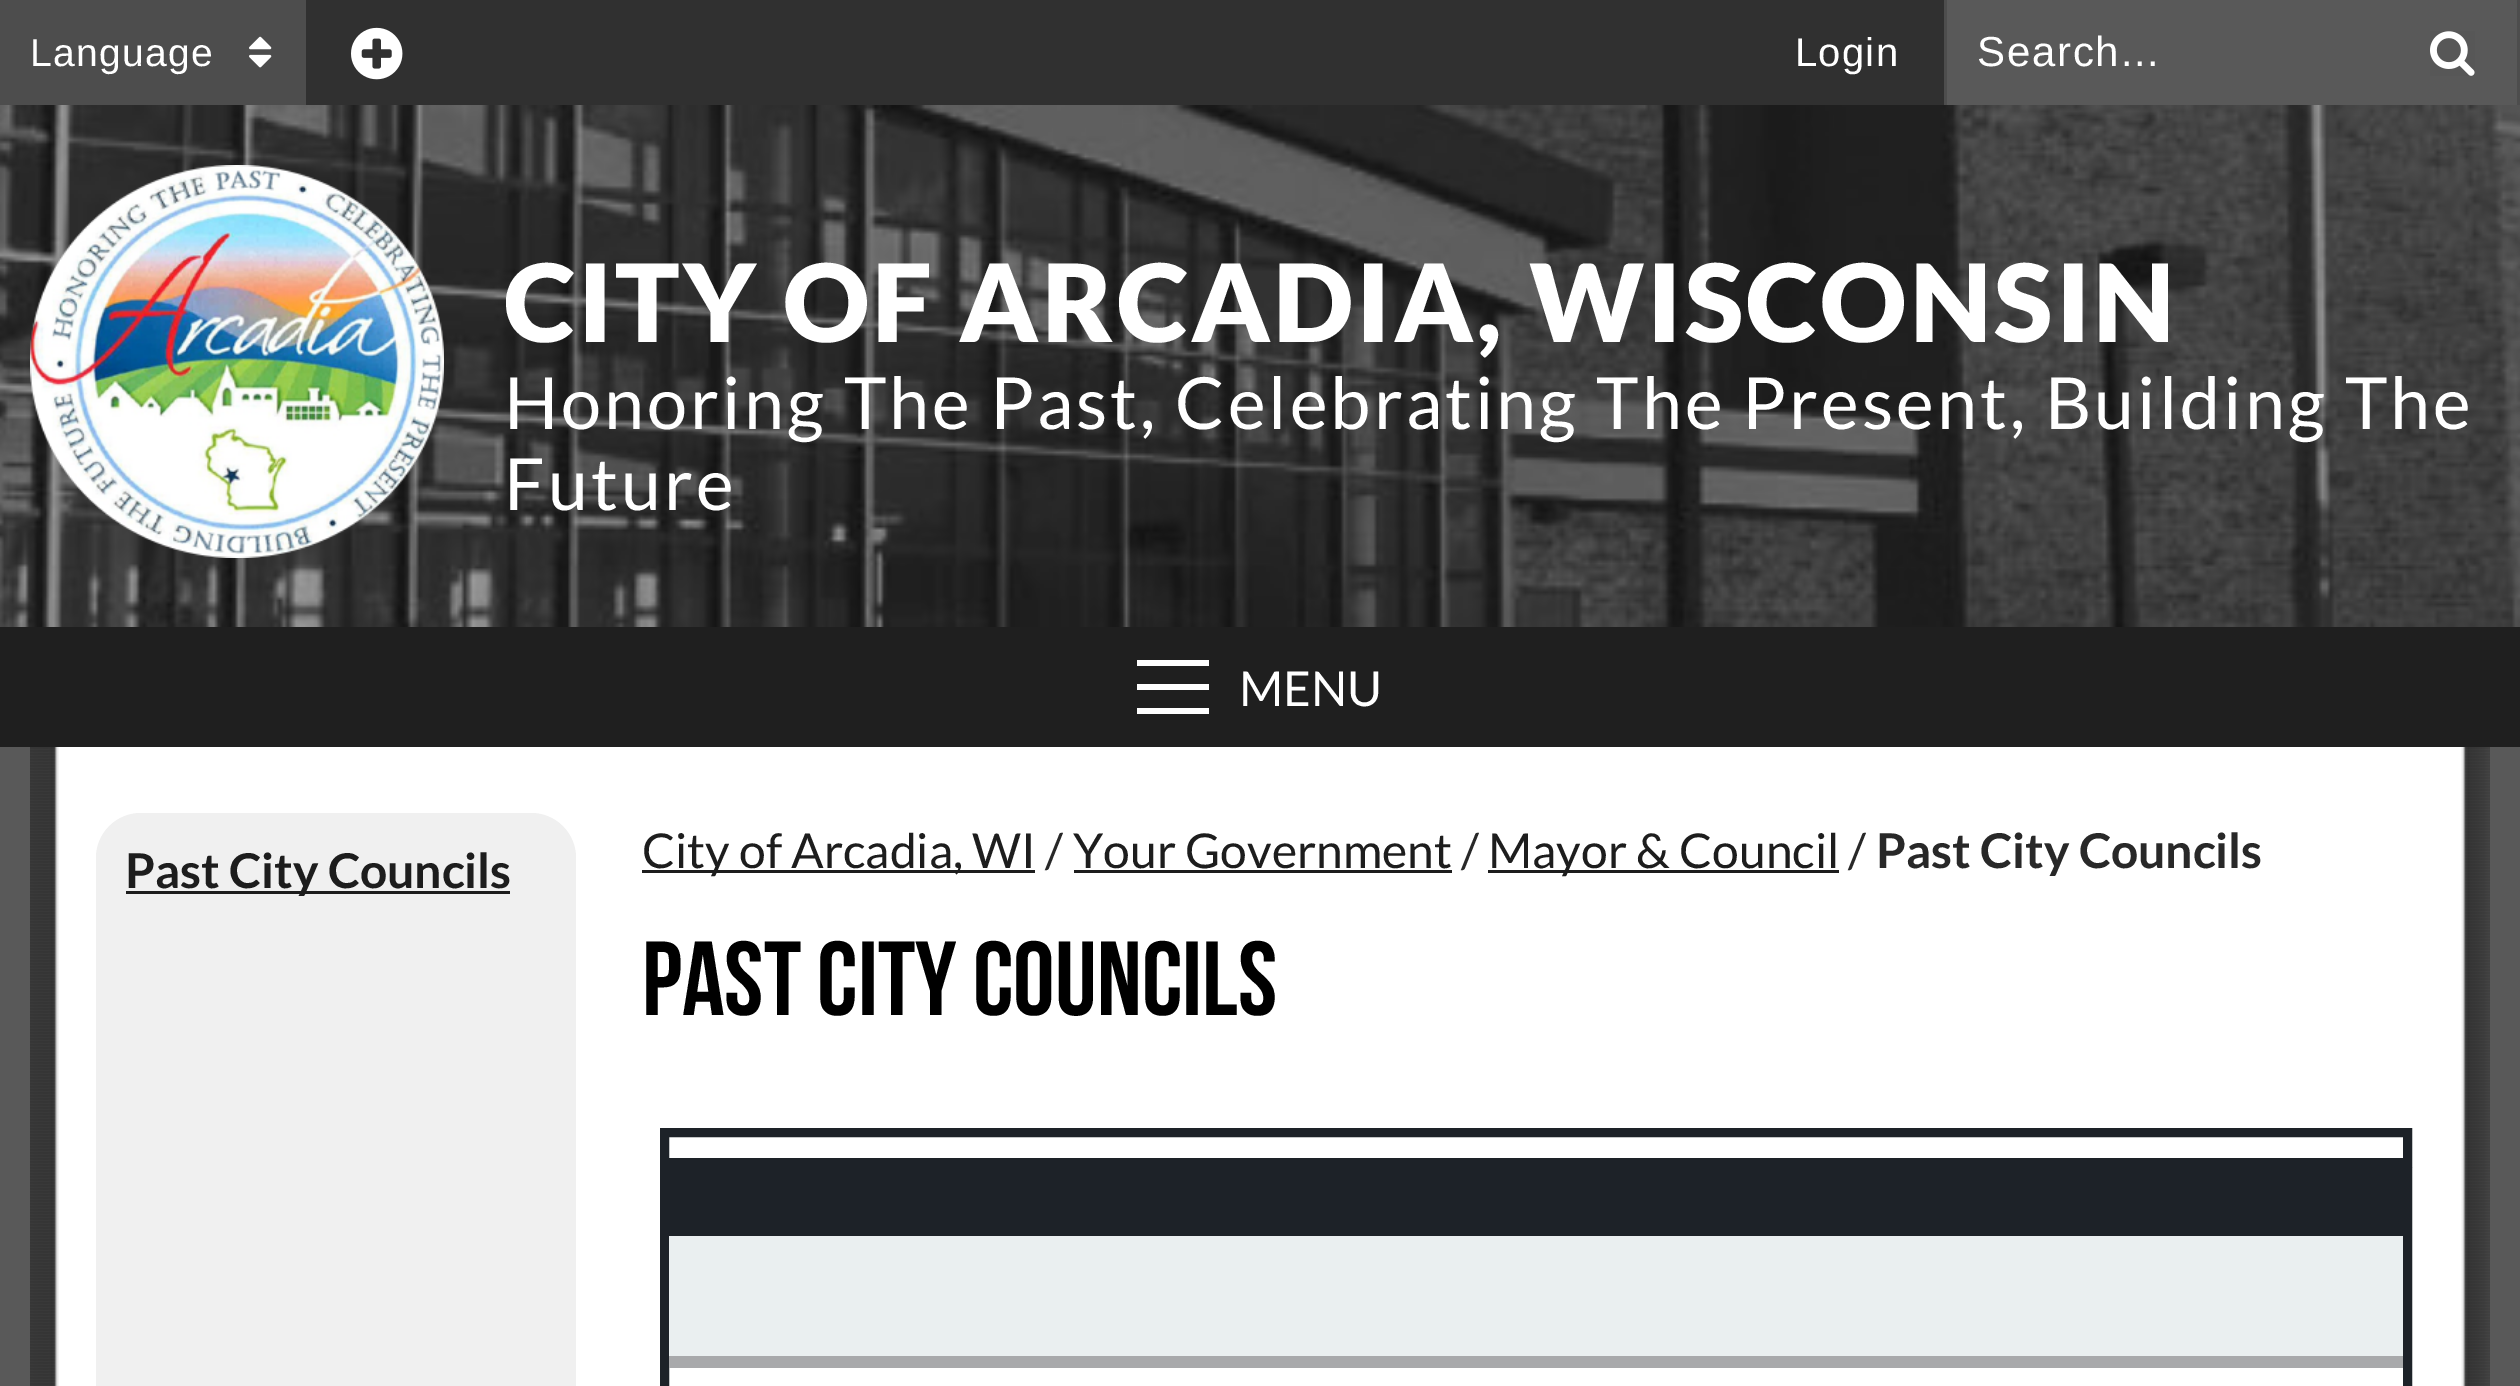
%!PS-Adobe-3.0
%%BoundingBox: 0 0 2520 1386
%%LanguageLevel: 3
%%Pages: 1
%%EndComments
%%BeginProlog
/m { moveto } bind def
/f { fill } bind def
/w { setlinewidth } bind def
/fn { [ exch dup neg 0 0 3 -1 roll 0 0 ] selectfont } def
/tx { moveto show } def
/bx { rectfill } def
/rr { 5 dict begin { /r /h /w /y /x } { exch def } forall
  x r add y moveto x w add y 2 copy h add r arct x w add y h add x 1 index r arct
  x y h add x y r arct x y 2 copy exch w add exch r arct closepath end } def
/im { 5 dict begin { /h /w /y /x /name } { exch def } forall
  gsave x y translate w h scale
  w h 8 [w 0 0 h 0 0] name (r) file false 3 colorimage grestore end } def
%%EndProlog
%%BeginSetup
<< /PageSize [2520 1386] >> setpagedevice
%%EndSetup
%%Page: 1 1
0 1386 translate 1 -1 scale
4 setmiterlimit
0.349 setgray
0 0 2520 1386 bx
0.188 setgray
306 0 1638 105 bx
0.302 setgray
0 0 306 105 bx
/LiberationSans-Regular 39 fn
1 setgray
30 66 m 1.25 0 (Language) ashow
(image0.raw) 249 36 23 32 im
(image1.raw) 351 27 52 53 im
0.302 setgray
1944 0 3 105 bx
/LiberationSans-Regular 40 fn
1 setgray
1795 66 m 1.25 0 (Login) ashow
0.302 setgray
2517 0 3 105 bx
/LiberationSans-Regular 42 fn
1 setgray
1977 66 m 1.75 0 (Search...) ashow
(image2.raw) 2430 31 45 45 im
(image3.raw) 0 105 2520 522 im
(image4.raw) 30 165 414 393 im
/Lato-Black 108 fn
504 342 m 3 0 (CITY OF ARCADIA, WISCONSIN) ashow
/Lato-Regular 72 fn
504 429 m 3 0 (Honoring The Past, Celebrating The Present, Building The) ashow
504 510 m 3 0 (Future) ashow
0.122 setgray
0 627 2520 120 bx
1 setgray
1137 684 72 6 bx
1137 660 72 6 bx
1137 708 72 6 bx
/Lato-Regular 48 fn
(MENU) 1239 706 tx
(image5.raw) 30 747 2460 639 im
0.941 setgray
96 813 480 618 45 rr f
0.114 setgray
126 891 384 3 bx
/Lato-Bold 48 fn
(Past City Councils) 125 888 tx
642 870 393 3 bx
/Lato-Regular 48 fn
(City of Arcadia, WI) 642 868 tx
0.157 setgray
(/) 1045 868 tx
0.114 setgray
(Your Government) 1073 868 tx
1074 870 378 3 bx
0.157 setgray
(/) 1461 868 tx
0.114 setgray
1488 870 351 3 bx
(Mayor & Council) 1488 868 tx
0.157 setgray
(/) 1848 868 tx
/Lato-Bold 48 fn
(Past City Councils) 1876 868 tx
/BebasNeue-Regular 105 fn
0 setgray
(Past City Councils) 642 1015 tx
0.114 0.133 0.157 setrgbcolor
9 w
664.5 1132.5 1743 30 rectstroke
664.5 1171.5 1743 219 rectstroke
669 1176 1734 60 bx
0.918 0.937 0.941 setrgbcolor
669 1236 1734 120 bx
0.659 0.663 0.671 setrgbcolor
669 1356 1734 12 bx
showpage
%%EOF
